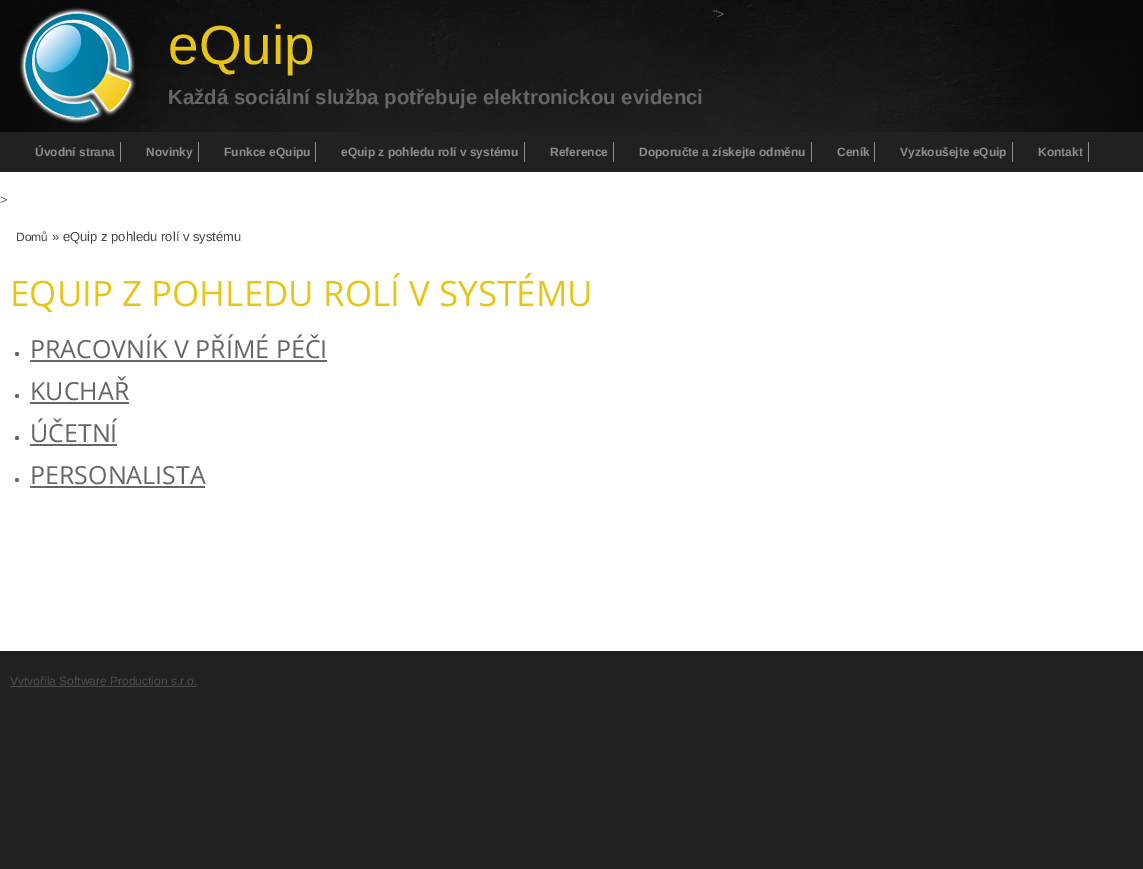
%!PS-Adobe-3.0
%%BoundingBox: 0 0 1143 869
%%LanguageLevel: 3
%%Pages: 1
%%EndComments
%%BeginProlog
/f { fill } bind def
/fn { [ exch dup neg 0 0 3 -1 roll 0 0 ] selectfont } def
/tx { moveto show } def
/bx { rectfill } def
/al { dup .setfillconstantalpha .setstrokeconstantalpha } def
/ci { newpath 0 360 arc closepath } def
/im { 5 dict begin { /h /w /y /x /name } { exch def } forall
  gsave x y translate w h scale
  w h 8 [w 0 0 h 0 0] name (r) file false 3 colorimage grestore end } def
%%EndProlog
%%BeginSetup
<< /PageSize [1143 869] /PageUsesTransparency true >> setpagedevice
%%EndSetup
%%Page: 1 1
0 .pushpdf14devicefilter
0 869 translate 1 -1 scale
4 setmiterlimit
0.129 setgray
0 0 1143 869 bx
(image0.raw) 0 0 1143 132 im
0.8 al
0 setgray
0 0 1143 132 bx
/LiberationSans-Regular 12 fn
1 al
0.4 setgray
(">) 713 18 tx
(image1.raw) 19 7 117 117 im
/LiberationSans-Regular 55 fn
0.902 0.773 0.078 setrgbcolor
(eQuip) 168 64 tx
/LiberationSans-Bold 20.4 fn
0.4 setgray
(Každá sociální služba potřebuje elektronickou evidenci) 168 104 tx
0.557 setgray
120 142 1 20 bx
/LiberationSans-Bold 12 fn
(Úvodní strana) 35 156 tx
198 142 1 20 bx
(Novinky) 146 156 tx
315 142 1 20 bx
(Funkce eQuipu) 224 156 tx
524 142 1 20 bx
(eQuip z pohledu rolí v systému) 341 156 tx
613 142 1 20 bx
(Reference) 550 156 tx
811 142 1 20 bx
(Doporučte a získejte odměnu) 639 156 tx
874 142 1 20 bx
(Ceník) 837 156 tx
1012 142 1 20 bx
(Vyzkoušejte eQuip) 900 156 tx
1088 142 1 20 bx
(Kontakt) 1038 156 tx
1 setgray
0 172 1143 479 bx
/LiberationSans-Regular 13 fn
0.4 setgray
(>) 0 204 tx
/LiberationSans-Regular 12 fn
0.267 setgray
(Domů) 16 241 tx
/LiberationSans-Regular 13 fn
(» eQuip z pohledu rolí v systému) 52 241 tx
/OpenSans-Regular 35 fn
0.902 0.773 0.078 setrgbcolor
(EQUIP Z POHLEDU ROLÍ V SYSTÉMU) 10 306 tx
0.4 setgray
17 354 2 ci f
/OpenSans-Regular 25 fn
(PRACOVNÍK V PŘÍMÉ PÉČI) 30 358 tx
30 360 297 2 bx
17 396 2 ci f
(KUCHAŘ) 30 400 tx
30 402 99 2 bx
17 438 2 ci f
(ÚČETNÍ) 30 442 tx
30 444 87 2 bx
17 480 2 ci f
(PERSONALISTA) 30 484 tx
30 486 175 2 bx
0.302 setgray
10 686 187 1 bx
/LiberationSans-Regular 12 fn
(Vytvořila Software Production s.r.o.) 10 685 tx
.poppdf14devicefilter showpage
%%EOF
